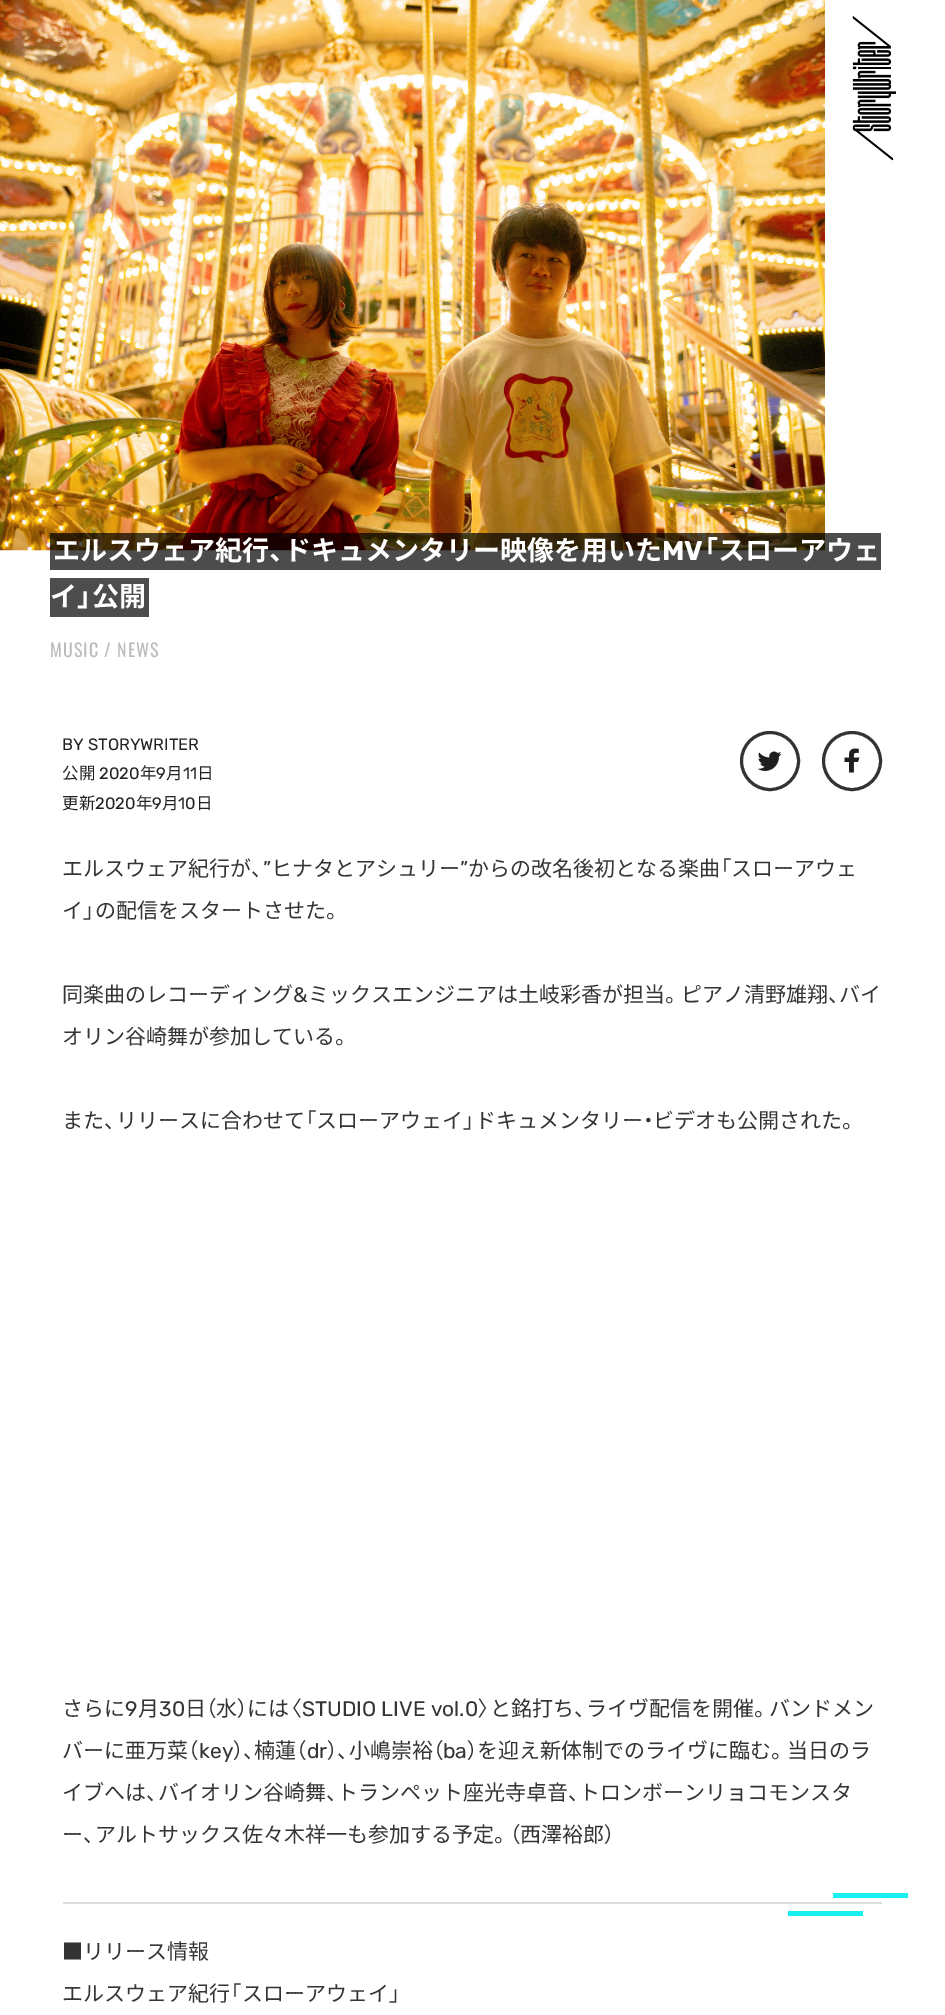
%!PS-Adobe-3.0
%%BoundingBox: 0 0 945 2015
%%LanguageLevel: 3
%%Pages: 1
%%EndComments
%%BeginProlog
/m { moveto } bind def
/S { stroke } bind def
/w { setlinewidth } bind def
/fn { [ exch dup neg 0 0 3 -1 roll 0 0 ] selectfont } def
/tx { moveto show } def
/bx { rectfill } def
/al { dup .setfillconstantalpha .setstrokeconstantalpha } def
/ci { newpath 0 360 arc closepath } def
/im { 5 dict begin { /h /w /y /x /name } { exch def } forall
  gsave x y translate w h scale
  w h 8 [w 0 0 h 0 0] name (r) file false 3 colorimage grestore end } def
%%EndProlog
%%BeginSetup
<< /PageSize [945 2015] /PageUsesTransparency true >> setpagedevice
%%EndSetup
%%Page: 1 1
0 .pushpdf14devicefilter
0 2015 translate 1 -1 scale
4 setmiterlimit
1 setgray
0 0 945 2015 bx
(image0.raw) 852 15 44 146 im
(image1.raw) 0 0 825 551 im
0.7 al
0 setgray
50 533 831 37 bx
/NotoSansJP-Bold 27 fn
1 al
1 setgray
(エルスウェア紀行) 53 560 tx
/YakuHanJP-Bold 27 fn
(、) 269 560 tx
/NotoSansJP-Bold 27 fn
(ドキュメンタリー映像を用いた) 284 560 tx
/Rubik-Bold 27 fn
(MV) 662 560 tx
/YakuHanJP-Bold 27 fn
(「) 703 560 tx
/NotoSansJP-Bold 27 fn
(スローアウェ) 718 560 tx
0.302 setgray
50 578 99 39 bx
1 setgray
(イ) 50 606 tx
/YakuHanJP-Bold 27 fn
(」) 77 606 tx
/NotoSansJP-Bold 27 fn
(公開) 92 606 tx
/Oswald-Regular 18 fn
0.733 setgray
50 657 m 1 0 (MUSIC) ashow
104 657 m 1 0 (/) ashow
117 657 m 1 0 (NEWS) ashow
/Rubik-Regular 16.5 fn
0.133 setgray
(BY STORYWRITER) 62 750 tx
/NotoSansJP-Regular 16.5 fn
(公開) 62 779 tx
/Rubik-Regular 16.5 fn
(2020) 99 779 tx
/NotoSansJP-Regular 16.5 fn
(年) 140 779 tx
/Rubik-Regular 16.5 fn
(9) 156 779 tx
/NotoSansJP-Regular 16.5 fn
(月) 166 779 tx
/Rubik-Regular 16.5 fn
(11) 183 779 tx
/NotoSansJP-Regular 16.5 fn
(日) 197 779 tx
(更新) 62 809 tx
/Rubik-Regular 16.5 fn
(2020) 95 809 tx
/NotoSansJP-Regular 16.5 fn
(年) 136 809 tx
/Rubik-Regular 16.5 fn
(9) 152 809 tx
/NotoSansJP-Regular 16.5 fn
(月) 162 809 tx
/Rubik-Regular 16.5 fn
(10) 178 809 tx
/NotoSansJP-Regular 16.5 fn
(日) 196 809 tx
(image2.raw) 757 751 25 20 im
0.2 setgray
3 w
770 761 28.5 ci S
(image3.raw) 844 748 16 25 im
852 761 28.5 ci S
/NotoSansJP-Regular 21 fn
0.204 setgray
(エルスウェア紀行が) 62 876 tx
/Rubik-Regular 21 fn
(”) 263 876 tx
/NotoSansJP-Regular 21 fn
(ヒナタとアシュリー) 271 876 tx
/Rubik-Regular 21 fn
(”) 460 876 tx
/NotoSansJP-Regular 21 fn
(からの改名後初となる楽曲) 468 876 tx
/YakuHanJP-Regular 21 fn
(「) 720 876 tx
/NotoSansJP-Regular 21 fn
(スローアウェ) 731 876 tx
/YakuHanJP-Regular 21 fn
(、) 251 876 tx
/NotoSansJP-Regular 21 fn
(イ) 62 918 tx
/YakuHanJP-Regular 21 fn
(」) 83 918 tx
/NotoSansJP-Regular 21 fn
(の配信をスタートさせた) 95 918 tx
/YakuHanJP-Regular 21 fn
(。) 326 918 tx
/NotoSansJP-Regular 21 fn
(同楽曲のレコーディング) 62 1002 tx
/Rubik-Regular 21 fn
(&) 293 1002 tx
/NotoSansJP-Regular 21 fn
(ミックスエンジニアは土岐彩香が担当) 308 1002 tx
/YakuHanJP-Regular 21 fn
(。) 665 1002 tx
/NotoSansJP-Regular 21 fn
(ピアノ清野雄翔) 681 1002 tx
/YakuHanJP-Regular 21 fn
(、) 828 1002 tx
/NotoSansJP-Regular 21 fn
(バイ) 839 1002 tx
(オリン谷崎舞が参加している) 62 1044 tx
/YakuHanJP-Regular 21 fn
(。) 335 1044 tx
/NotoSansJP-Regular 21 fn
(また) 62 1128 tx
(リリースに合わせて) 116 1128 tx
/YakuHanJP-Regular 21 fn
(「) 305 1128 tx
/NotoSansJP-Regular 21 fn
(スローアウェイ) 316 1128 tx
/YakuHanJP-Regular 21 fn
(」) 463 1128 tx
/NotoSansJP-Regular 21 fn
(ドキュメンタリー) 475 1128 tx
/YakuHanJP-Regular 21 fn
(・) 643 1128 tx
/NotoSansJP-Regular 21 fn
(ビデオも公開された) 653 1128 tx
/YakuHanJP-Regular 21 fn
(、) 104 1128 tx
(。) 842 1128 tx
/NotoSansJP-Regular 21 fn
(さらに) 62 1716 tx
/Rubik-Regular 21 fn
(9) 125 1716 tx
/NotoSansJP-Regular 21 fn
(月) 138 1716 tx
/Rubik-Regular 21 fn
(30) 159 1716 tx
/NotoSansJP-Regular 21 fn
(日) 185 1716 tx
/YakuHanJP-Regular 21 fn
(（) 206 1716 tx
/NotoSansJP-Regular 21 fn
(水) 216 1716 tx
/YakuHanJP-Regular 21 fn
(）) 237 1716 tx
/NotoSansJP-Regular 21 fn
(には) 247 1716 tx
/YakuHanJP-Regular 21 fn
(〈) 289 1716 tx
/Rubik-Regular 21 fn
(STUDIO LIVE vol.0) 302 1716 tx
/YakuHanJP-Regular 21 fn
(〉) 478 1716 tx
/NotoSansJP-Regular 21 fn
(と銘打ち) 490 1716 tx
/YakuHanJP-Regular 21 fn
(、) 574 1716 tx
/NotoSansJP-Regular 21 fn
(ライヴ配信を開催) 586 1716 tx
/YakuHanJP-Regular 21 fn
(。) 754 1716 tx
/NotoSansJP-Regular 21 fn
(バンドメン) 769 1716 tx
(バーに亜万菜) 62 1758 tx
/YakuHanJP-Regular 21 fn
(（) 188 1758 tx
/Rubik-Regular 21 fn
(key) 199 1758 tx
/YakuHanJP-Regular 21 fn
(）、) 233 1758 tx
/NotoSansJP-Regular 21 fn
(楠蓮) 254 1758 tx
/YakuHanJP-Regular 21 fn
(（) 296 1758 tx
/Rubik-Regular 21 fn
(dr) 307 1758 tx
/YakuHanJP-Regular 21 fn
(）、) 327 1758 tx
/NotoSansJP-Regular 21 fn
(小嶋崇裕) 349 1758 tx
/YakuHanJP-Regular 21 fn
(（) 433 1758 tx
/Rubik-Regular 21 fn
(ba) 443 1758 tx
/YakuHanJP-Regular 21 fn
(）) 467 1758 tx
/NotoSansJP-Regular 21 fn
(を迎え新体制でのライヴに臨む) 477 1758 tx
/YakuHanJP-Regular 21 fn
(。) 771 1758 tx
/NotoSansJP-Regular 21 fn
(当日のラ) 787 1758 tx
(イブへは) 62 1800 tx
/YakuHanJP-Regular 21 fn
(、) 146 1800 tx
/NotoSansJP-Regular 21 fn
(バイオリン谷崎舞) 158 1800 tx
/YakuHanJP-Regular 21 fn
(、) 326 1800 tx
/NotoSansJP-Regular 21 fn
(トランペット座光寺卓音) 337 1800 tx
/YakuHanJP-Regular 21 fn
(、) 568 1800 tx
/NotoSansJP-Regular 21 fn
(トロンボーンリョコモンスタ) 579 1800 tx
(ー) 62 1842 tx
(アルトサックス佐々木祥一も参加する予定) 95 1842 tx
/YakuHanJP-Regular 21 fn
(。（) 494 1842 tx
/NotoSansJP-Regular 21 fn
(西澤裕郎) 520 1842 tx
/YakuHanJP-Regular 21 fn
(）) 604 1842 tx
(、) 83 1842 tx
0.867 setgray
63 1902 819 2 bx
/NotoSansJP-Regular 21 fn
0.204 setgray
(■リリース情報) 62 1959 tx
(エルスウェア紀行) 62 2001 tx
/YakuHanJP-Regular 21 fn
(「) 230 2001 tx
/NotoSansJP-Regular 21 fn
(スローアウェイ) 242 2001 tx
/YakuHanJP-Regular 21 fn
(」) 389 2001 tx
0.086 0.941 0.945 setrgbcolor
833 1893 75 5 bx
788 1911 75 5 bx
.poppdf14devicefilter showpage
%%EOF
